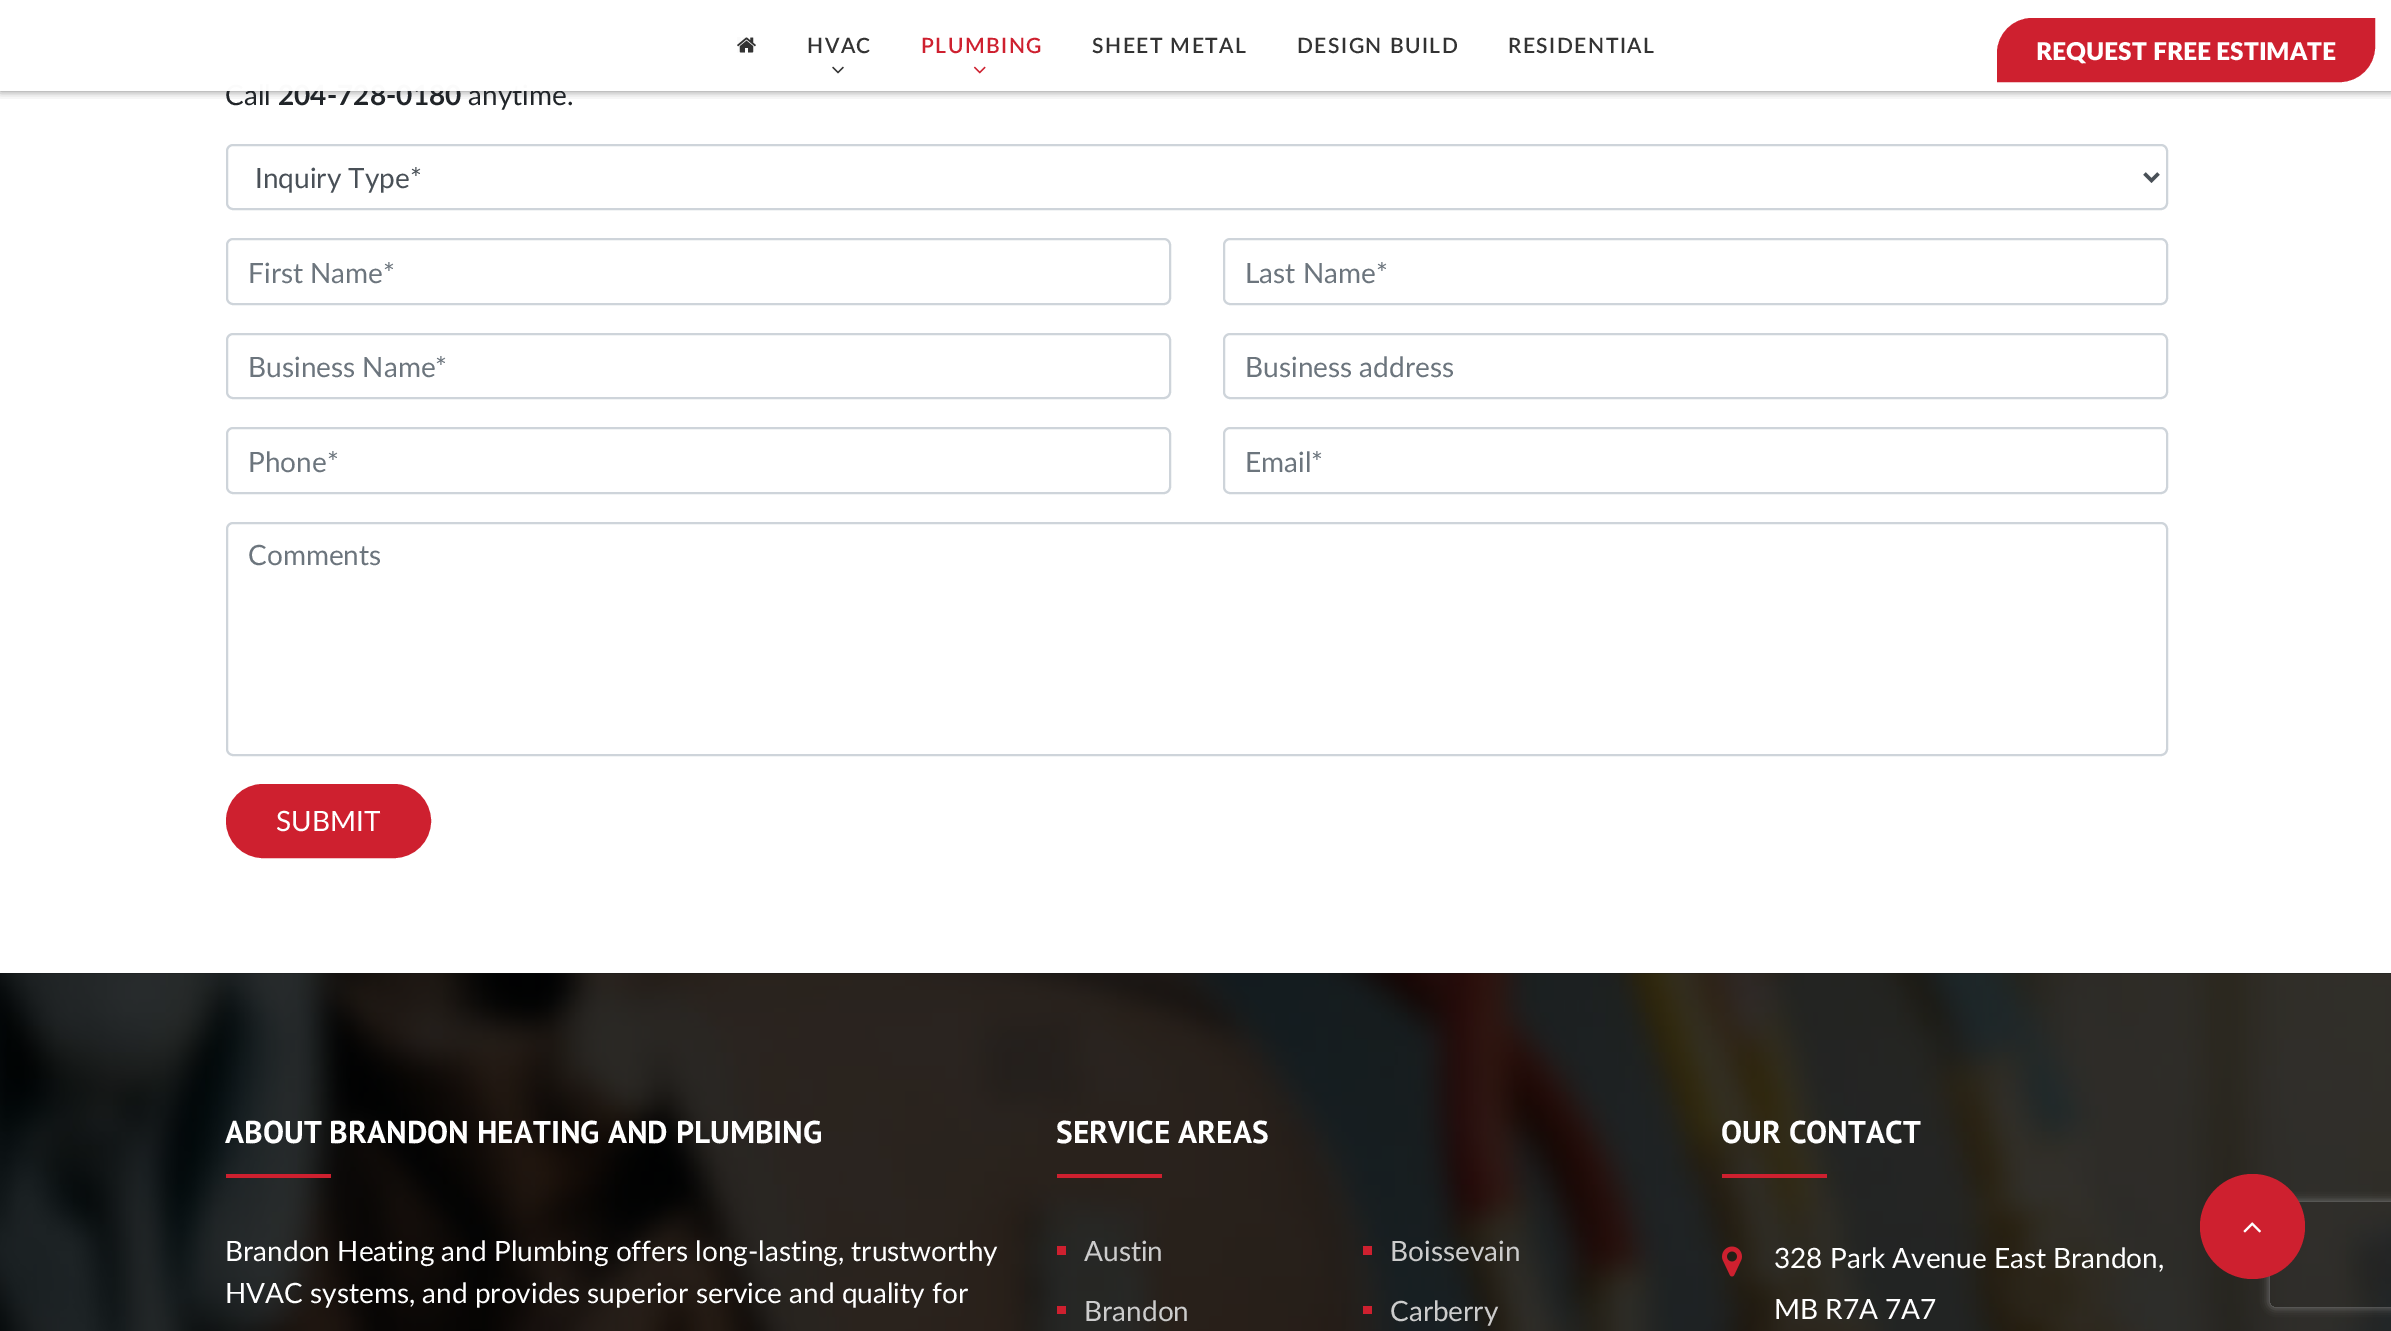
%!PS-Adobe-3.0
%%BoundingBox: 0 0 2391 1331
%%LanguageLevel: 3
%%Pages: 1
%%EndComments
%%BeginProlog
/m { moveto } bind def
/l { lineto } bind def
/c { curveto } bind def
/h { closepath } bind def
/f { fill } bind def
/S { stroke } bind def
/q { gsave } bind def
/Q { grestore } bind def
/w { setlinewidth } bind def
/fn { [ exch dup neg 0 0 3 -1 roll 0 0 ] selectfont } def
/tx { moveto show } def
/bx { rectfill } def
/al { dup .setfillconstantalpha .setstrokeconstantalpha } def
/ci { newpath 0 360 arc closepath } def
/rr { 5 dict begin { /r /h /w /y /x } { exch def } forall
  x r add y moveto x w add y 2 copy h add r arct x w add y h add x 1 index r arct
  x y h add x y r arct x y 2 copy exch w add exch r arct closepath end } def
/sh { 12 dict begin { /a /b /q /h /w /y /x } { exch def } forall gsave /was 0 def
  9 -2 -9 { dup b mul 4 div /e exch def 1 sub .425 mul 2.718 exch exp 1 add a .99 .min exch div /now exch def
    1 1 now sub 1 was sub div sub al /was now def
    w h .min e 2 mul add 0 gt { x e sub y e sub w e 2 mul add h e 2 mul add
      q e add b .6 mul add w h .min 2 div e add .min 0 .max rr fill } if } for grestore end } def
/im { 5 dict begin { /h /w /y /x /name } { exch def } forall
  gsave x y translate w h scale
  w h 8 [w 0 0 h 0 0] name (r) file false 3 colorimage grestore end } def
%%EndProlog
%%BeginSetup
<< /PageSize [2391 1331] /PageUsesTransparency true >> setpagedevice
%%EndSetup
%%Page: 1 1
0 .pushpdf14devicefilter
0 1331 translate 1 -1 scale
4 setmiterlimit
1 setgray
0 0 2391 1331 bx
q
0 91 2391 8 rectclip
0 setgray
0 0 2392 91 0 4.5 0.49 sh
Q
/Lato-Regular 28 fn
0.129 0.145 0.161 setrgbcolor
(Call) 225 105 tx
/Lato-Bold 28 fn
(204-728-0180) 278 105 tx
/Lato-Regular 28 fn
(anytime.) 468 105 tx
0.98 al
1 setgray
226 84 336 7 bx
1 al
(image0.raw) 737 37 19 16 im
/Lato-SemiBold 21 fn
0.2 setgray
807 53 m 1.5 0 (HVAC) ashow
(image1.raw) 832 66 12 8 im
0.808 0.125 0.184 setrgbcolor
921 53 m 1.5 0 (PLUMBING) ashow
(image2.raw) 973 66 13 8 im
0.2 setgray
1092 53 m 1.5 0 (SHEET METAL) ashow
1297 53 m 1.5 0 (DESIGN BUILD) ashow
1508 53 m 1.5 0 (RESIDENTIAL) ashow
0.808 0.125 0.184 setrgbcolor
2032 20 m 2373 20 l 2373 47 l 2373 65 2358 80 2340 80 c 1999 80 l 1999 53 l 1999 35 2014 20 2032 20 c h q f Q
4 w
S
/Lato-ExtraBold 24.5 fn
1 setgray
(REQUEST FREE ESTIMATE) 2036 60 tx
0.808 0.831 0.855 setrgbcolor
2 w
227 145 1940 64 6 rr S
0.286 0.314 0.341 setrgbcolor
3.5 w
2144.5 173.5 m 2151.5 180.5 l 2158.5 173.5 l S
/Lato-Regular 28 fn
(Inquiry Type*) 255 188 tx
0.808 0.831 0.855 setrgbcolor
2 w
227 239 943 65 6 rr S
0.424 0.459 0.49 setrgbcolor
(First Name*) 248 283 tx
0.808 0.831 0.855 setrgbcolor
1224 239 943 65 6 rr S
0.424 0.459 0.49 setrgbcolor
(Last Name*) 1245 283 tx
0.808 0.831 0.855 setrgbcolor
227 334 943 64 6 rr S
0.424 0.459 0.49 setrgbcolor
(Business Name*) 248 377 tx
0.808 0.831 0.855 setrgbcolor
1224 334 943 64 6 rr S
0.424 0.459 0.49 setrgbcolor
(Business address) 1245 377 tx
0.808 0.831 0.855 setrgbcolor
227 428 943 65 6 rr S
0.424 0.459 0.49 setrgbcolor
(Phone*) 248 472 tx
0.808 0.831 0.855 setrgbcolor
1224 428 943 65 6 rr S
0.424 0.459 0.49 setrgbcolor
(Email*) 1245 472 tx
0.808 0.831 0.855 setrgbcolor
227 523 1940 232 6 rr S
0.424 0.459 0.49 setrgbcolor
(Comments) 248 565 tx
0.808 0.125 0.184 setrgbcolor
227 785 203 72 36 rr q f Q
S
1 setgray
(SUBMIT) 276 831 tx
(image3.raw) 0 973 2391 358 im
/PTSans-Bold 31.5 fn
(ABOUT BRANDON HEATING AND PLUMBING) 225 1143 tx
0.808 0.125 0.184 setrgbcolor
226 1174 105 4 bx
/Lato-Regular 28 fn
1 setgray
(Brandon Heating and Plumbing offers long-lasting, trustworthy) 225 1261 tx
(HVAC systems, and provides superior service and quality for) 225 1303 tx
/PTSans-Bold 31.5 fn
(SERVICE AREAS) 1056 1143 tx
0.808 0.125 0.184 setrgbcolor
1057 1174 105 4 bx
1057 1246 9 9 bx
/Lato-Regular 28 fn
0.8 setgray
(Austin) 1084 1261 tx
0.808 0.125 0.184 setrgbcolor
1363 1246 9 9 bx
0.8 setgray
(Boissevain) 1390 1261 tx
0.808 0.125 0.184 setrgbcolor
1057 1306 9 8 bx
0.8 setgray
(Brandon) 1084 1321 tx
0.808 0.125 0.184 setrgbcolor
1363 1306 9 8 bx
0.8 setgray
(Carberry) 1390 1321 tx
/PTSans-Bold 31.5 fn
1 setgray
(OUR CONTACT) 1721 1143 tx
0.808 0.125 0.184 setrgbcolor
1722 1174 105 4 bx
(image4.raw) 1722 1246 20 31 im
/Lato-Regular 28 fn
1 setgray
(328 Park Avenue East Brandon,) 1774 1268 tx
(MB R7A 7A7) 1774 1319 tx
q
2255 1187 m 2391 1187 l 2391 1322 l 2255 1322 l h 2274 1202 m 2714 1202 l 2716 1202 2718 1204 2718 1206 c 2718 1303 l 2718 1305 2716 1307 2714 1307 c 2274 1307 l 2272 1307 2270 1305 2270 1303 c 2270 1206 l 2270 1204 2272 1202 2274 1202 c h eoclip newpath
0.502 setgray
2270 1202 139 105 4 4.5 1 sh
Q
0.808 0.125 0.184 setrgbcolor
2252.5 1226.5 52.5 ci f
(image5.raw) 2243 1222 18 11 im
.poppdf14devicefilter showpage
%%EOF
